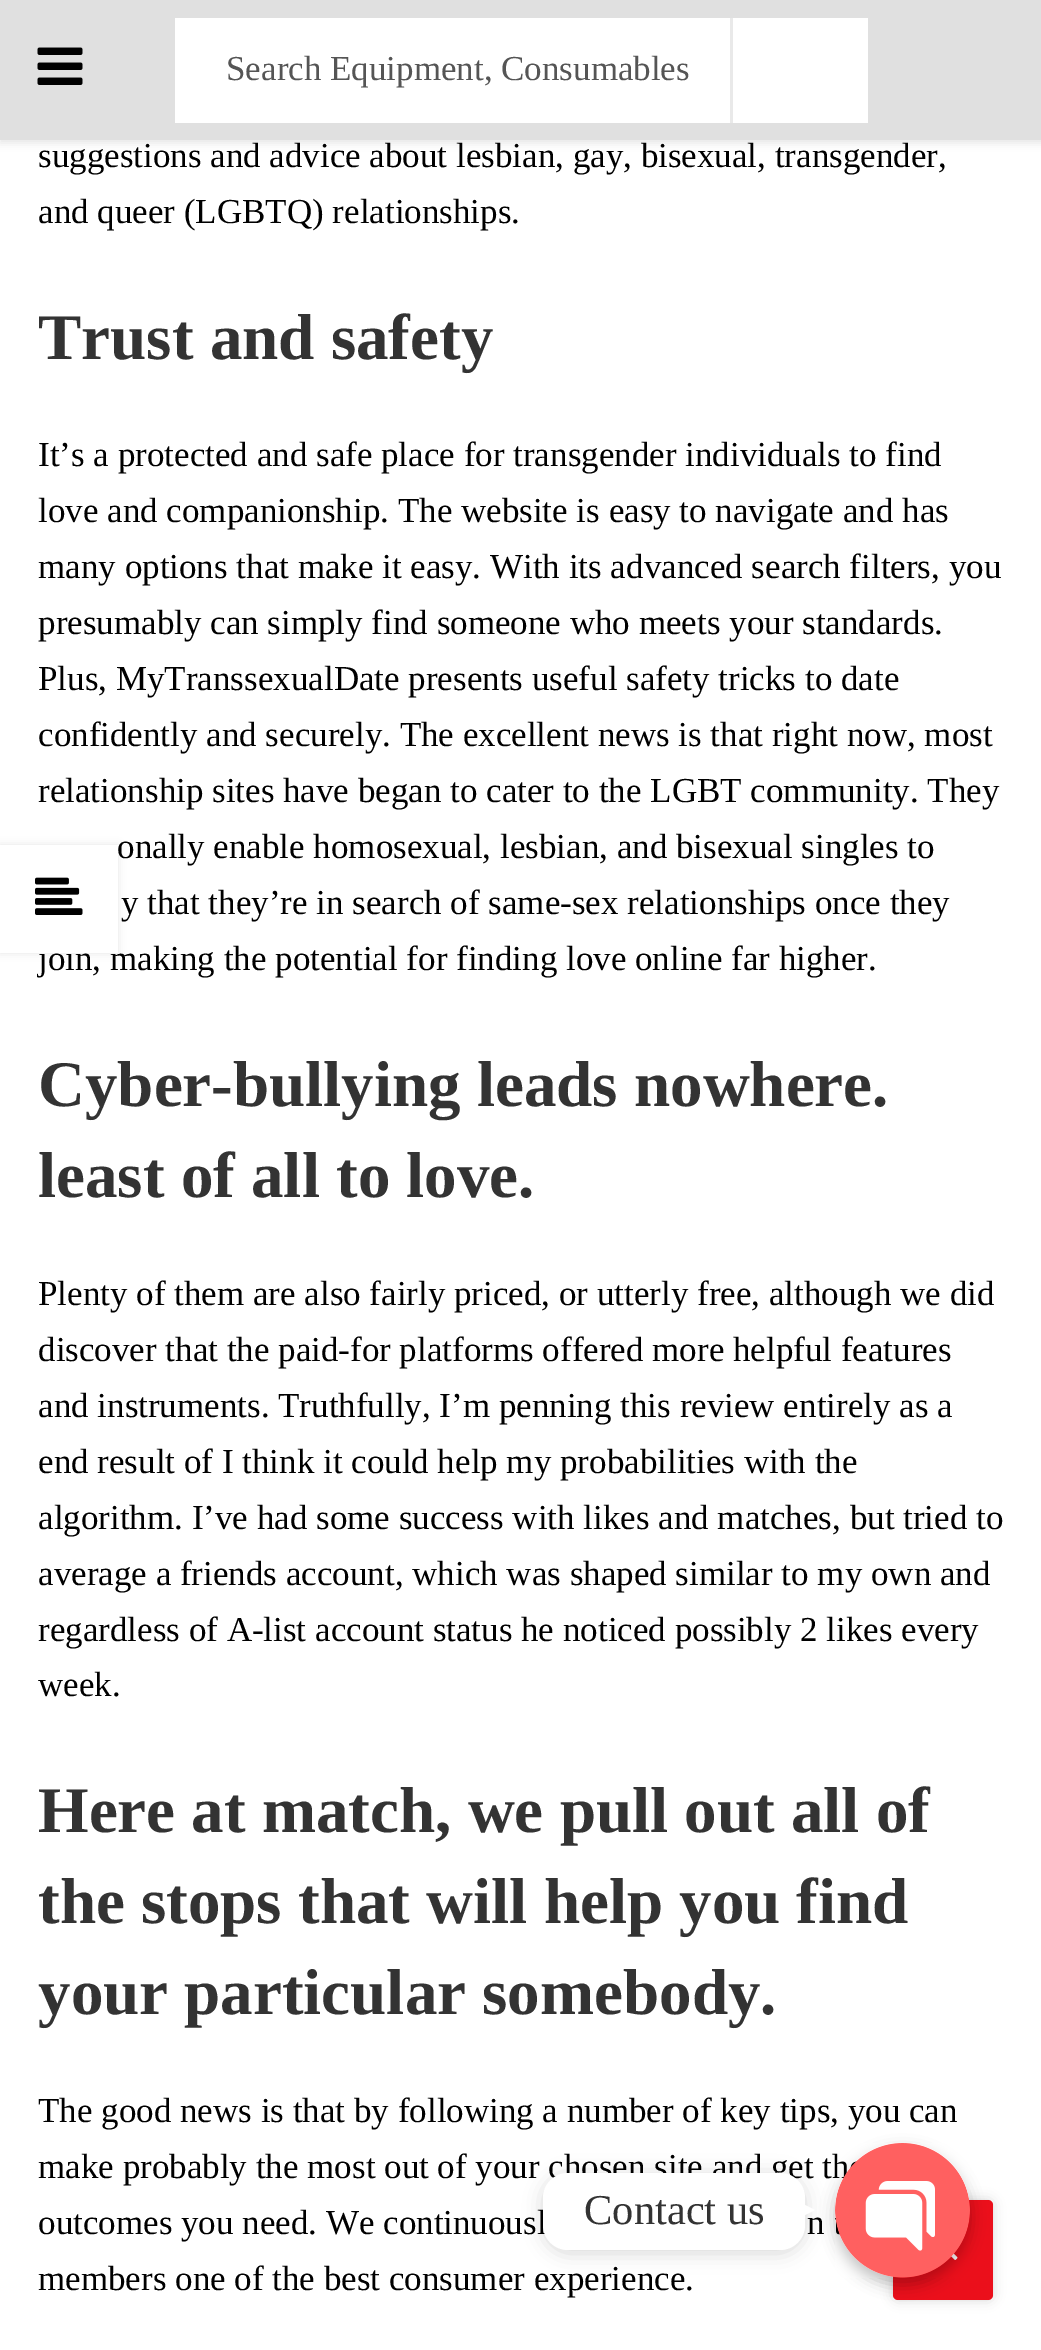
%!PS-Adobe-3.0
%%BoundingBox: 0 0 1041 2350
%%LanguageLevel: 3
%%Pages: 1
%%EndComments
%%BeginProlog
/m { moveto } bind def
/l { lineto } bind def
/c { curveto } bind def
/h { closepath } bind def
/f { fill } bind def
/q { gsave } bind def
/Q { grestore } bind def
/fn { [ exch dup neg 0 0 3 -1 roll 0 0 ] selectfont } def
/tx { moveto show } def
/bx { rectfill } def
/al { dup .setfillconstantalpha .setstrokeconstantalpha } def
/rr { 5 dict begin { /r /h /w /y /x } { exch def } forall
  x r add y moveto x w add y 2 copy h add r arct x w add y h add x 1 index r arct
  x y h add x y r arct x y 2 copy exch w add exch r arct closepath end } def
/sh { 12 dict begin { /a /b /q /h /w /y /x } { exch def } forall gsave /was 0 def
  9 -2 -9 { dup b mul 4 div /e exch def 1 sub .425 mul 2.718 exch exp 1 add a .99 .min exch div /now exch def
    1 1 now sub 1 was sub div sub al /was now def
    w h .min e 2 mul add 0 gt { x e sub y e sub w e 2 mul add h e 2 mul add
      q e add b .6 mul add w h .min 2 div e add .min 0 .max rr fill } if } for grestore end } def
/im { 5 dict begin { /h /w /y /x /name } { exch def } forall
  gsave x y translate w h scale
  w h 8 [w 0 0 h 0 0] name (r) file false 3 colorimage grestore end } def
%%EndProlog
%%BeginSetup
<< /PageSize [1041 2350] /PageUsesTransparency true >> setpagedevice
%%EndSetup
%%Page: 1 1
0 .pushpdf14devicefilter
0 2350 translate 1 -1 scale
4 setmiterlimit
1 setgray
0 0 1041 2350 bx
0 setgray
0 3 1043 140 0 4 0.1 sh
0.878 setgray
0 0 1041 140 bx
(image0.raw) 37 47 46 38 im
1 setgray
175 18 693 105 bx
0.914 setgray
730 18 3 105 bx
/LiberationSerif-Regular 35 fn
0.333 setgray
(Search Equipment, Consumables) 226 80 tx
0 setgray
(suggestions and advice about lesbian, gay, bisexual, transgender,) 38 167 tx
(and queer \(LGBTQ\) relationships.) 38 223 tx
/LiberationSerif-Bold 65 fn
0.2 setgray
(Trust and safety) 38 359 tx
/LiberationSerif-Regular 35 fn
0 setgray
(It’s a protected and safe place for transgender individuals to find) 38 466 tx
(love and companionship. The website is easy to navigate and has) 38 522 tx
(many options that make it easy. With its advanced search filters, you) 38 578 tx
(presumably can simply find someone who meets your standards.) 38 634 tx
(Plus, MyTranssexualDate presents useful safety tricks to date) 38 690 tx
(confidently and securely. The excellent news is that right now, most) 38 746 tx
(relationship sites have began to cater to the LGBT community. They) 38 802 tx
(onally enable homosexual, lesbian, and bisexual singles to) 117 858 tx
(y that they’re in search of same-sex relationships once they) 121 914 tx
(join, making the potential for finding love online far higher.) 38 970 tx
/LiberationSerif-Bold 65 fn
0.2 setgray
(Cyber-bullying leads nowhere.) 38 1106 tx
(least of all to love.) 38 1197 tx
/LiberationSerif-Regular 35 fn
0 setgray
(Plenty of them are also fairly priced, or utterly free, although we did) 38 1305 tx
(discover that the paid-for platforms offered more helpful features) 38 1361 tx
(and instruments. Truthfully, I’m penning this review entirely as a) 38 1417 tx
(end result of I think it could help my probabilities with the) 38 1473 tx
(algorithm. I’ve had some success with likes and matches, but tried to) 38 1529 tx
(average a friends account, which was shaped similar to my own and) 38 1585 tx
(regardless of A-list account status he noticed possibly 2 likes every) 38 1641 tx
(week.) 38 1696 tx
/LiberationSerif-Bold 65 fn
0.2 setgray
(Here at match, we pull out all of) 38 1832 tx
(the stops that will help you find) 38 1923 tx
(your particular somebody.) 38 2014 tx
/LiberationSerif-Regular 35 fn
0 setgray
(The good news is that by following a number of key tips, you can) 38 2122 tx
(make probably the most out of your chosen site and get the) 38 2178 tx
(outcomes you need. We continuousl) 38 2234 tx
(n) 807 2234 tx
(members one of the best consumer experience.) 38 2290 tx
0 845 118 108 0 4 0.1 sh
1 setgray
0 845 118 108 bx
(image1.raw) 35 877 48 38 im
q
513 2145 m 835 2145 l 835 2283 l 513 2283 l h 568 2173 m 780 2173 l 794 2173 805 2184 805 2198 c 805 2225 l 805 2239 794 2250 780 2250 c 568 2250 l 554 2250 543 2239 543 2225 c 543 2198 l 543 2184 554 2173 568 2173 c h eoclip newpath
0 setgray
543 2175 262 78 25 9.5 0.15 sh
Q
543 2173 262 77 25 rr f
/LiberationSerif-Regular 42.5 fn
0.2 setgray
(Contact us) 584 2224 tx
0 setgray
893 2200 100 100 5 6 0.15 sh
0.922 0.059 0.106 setrgbcolor
893 2200 100 100 5 rr f
(image3.raw) 951 2253 7 7 im
0 setgray
835 2150 135 135 67.5 7.5 0.25 sh
1 setgray
790 2222.5 m 790 2197.5 l 815 2210 l h f
(image2.raw) 835 2143 135 135 im
.poppdf14devicefilter showpage
%%EOF
